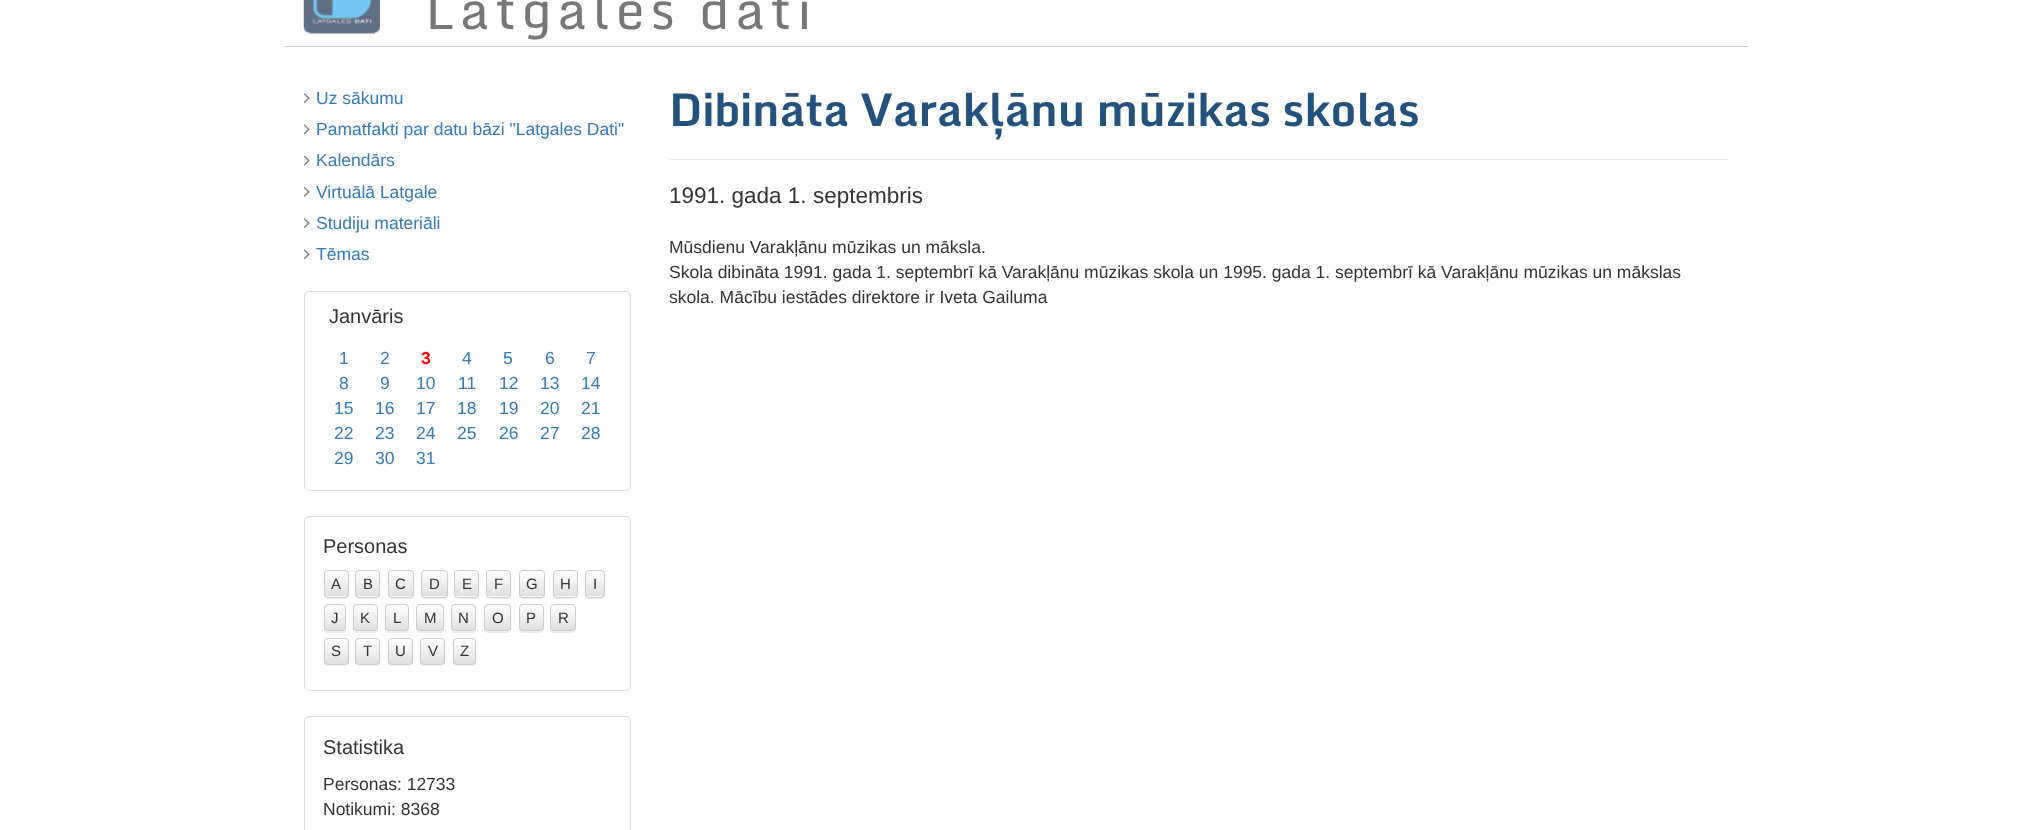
<?xml version="1.0" encoding="UTF-8"?>
<svg xmlns="http://www.w3.org/2000/svg" width="2031" height="830">
    <defs>
        <filter id="blur1" x="-50%" y="-200%" width="200%" height="500%"><feGaussianBlur stdDeviation="0.5"/></filter>
        <clipPath id="clip1"><rect x="324" y="570" width="25" height="28" rx="4"/></clipPath>
        <linearGradient id="g1" gradientUnits="userSpaceOnUse" x1="336" y1="571" x2="336" y2="596"><stop offset="0" stop-color="#FFFFFF"/><stop offset="1" stop-color="#E0E0E0"/></linearGradient>
        <clipPath id="clip2"><rect x="355" y="570" width="25" height="28" rx="4"/></clipPath>
        <linearGradient id="g2" gradientUnits="userSpaceOnUse" x1="368" y1="571" x2="368" y2="596"><stop offset="0" stop-color="#FFFFFF"/><stop offset="1" stop-color="#E0E0E0"/></linearGradient>
        <clipPath id="clip3"><rect x="388" y="570" width="26" height="28" rx="4"/></clipPath>
        <linearGradient id="g3" gradientUnits="userSpaceOnUse" x1="401" y1="571" x2="401" y2="596"><stop offset="0" stop-color="#FFFFFF"/><stop offset="1" stop-color="#E0E0E0"/></linearGradient>
        <clipPath id="clip4"><rect x="421" y="570" width="27" height="28" rx="4"/></clipPath>
        <linearGradient id="g4" gradientUnits="userSpaceOnUse" x1="434" y1="571" x2="434" y2="596"><stop offset="0" stop-color="#FFFFFF"/><stop offset="1" stop-color="#E0E0E0"/></linearGradient>
        <clipPath id="clip5"><rect x="454" y="570" width="25" height="28" rx="4"/></clipPath>
        <linearGradient id="g5" gradientUnits="userSpaceOnUse" x1="466" y1="571" x2="466" y2="596"><stop offset="0" stop-color="#FFFFFF"/><stop offset="1" stop-color="#E0E0E0"/></linearGradient>
        <clipPath id="clip6"><rect x="486" y="570" width="25" height="28" rx="4"/></clipPath>
        <linearGradient id="g6" gradientUnits="userSpaceOnUse" x1="499" y1="571" x2="499" y2="596"><stop offset="0" stop-color="#FFFFFF"/><stop offset="1" stop-color="#E0E0E0"/></linearGradient>
        <clipPath id="clip7"><rect x="519" y="570" width="26" height="28" rx="4"/></clipPath>
        <linearGradient id="g7" gradientUnits="userSpaceOnUse" x1="532" y1="571" x2="532" y2="596"><stop offset="0" stop-color="#FFFFFF"/><stop offset="1" stop-color="#E0E0E0"/></linearGradient>
        <clipPath id="clip8"><rect x="553" y="570" width="25" height="28" rx="4"/></clipPath>
        <linearGradient id="g8" gradientUnits="userSpaceOnUse" x1="565" y1="571" x2="565" y2="596"><stop offset="0" stop-color="#FFFFFF"/><stop offset="1" stop-color="#E0E0E0"/></linearGradient>
        <clipPath id="clip9"><rect x="585" y="570" width="20" height="28" rx="4"/></clipPath>
        <linearGradient id="g9" gradientUnits="userSpaceOnUse" x1="595" y1="571" x2="595" y2="596"><stop offset="0" stop-color="#FFFFFF"/><stop offset="1" stop-color="#E0E0E0"/></linearGradient>
        <clipPath id="clip10"><rect x="324" y="604" width="22" height="27" rx="4"/></clipPath>
        <linearGradient id="g10" gradientUnits="userSpaceOnUse" x1="335" y1="605" x2="335" y2="630"><stop offset="0" stop-color="#FFFFFF"/><stop offset="1" stop-color="#E0E0E0"/></linearGradient>
        <clipPath id="clip11"><rect x="353" y="604" width="25" height="27" rx="4"/></clipPath>
        <linearGradient id="g11" gradientUnits="userSpaceOnUse" x1="365" y1="605" x2="365" y2="630"><stop offset="0" stop-color="#FFFFFF"/><stop offset="1" stop-color="#E0E0E0"/></linearGradient>
        <clipPath id="clip12"><rect x="385" y="604" width="24" height="27" rx="4"/></clipPath>
        <linearGradient id="g12" gradientUnits="userSpaceOnUse" x1="397" y1="605" x2="397" y2="630"><stop offset="0" stop-color="#FFFFFF"/><stop offset="1" stop-color="#E0E0E0"/></linearGradient>
        <clipPath id="clip13"><rect x="416" y="604" width="28" height="27" rx="4"/></clipPath>
        <linearGradient id="g13" gradientUnits="userSpaceOnUse" x1="430" y1="605" x2="430" y2="630"><stop offset="0" stop-color="#FFFFFF"/><stop offset="1" stop-color="#E0E0E0"/></linearGradient>
        <clipPath id="clip14"><rect x="451" y="604" width="25" height="27" rx="4"/></clipPath>
        <linearGradient id="g14" gradientUnits="userSpaceOnUse" x1="464" y1="605" x2="464" y2="630"><stop offset="0" stop-color="#FFFFFF"/><stop offset="1" stop-color="#E0E0E0"/></linearGradient>
        <clipPath id="clip15"><rect x="484" y="604" width="27" height="27" rx="4"/></clipPath>
        <linearGradient id="g15" gradientUnits="userSpaceOnUse" x1="498" y1="605" x2="498" y2="630"><stop offset="0" stop-color="#FFFFFF"/><stop offset="1" stop-color="#E0E0E0"/></linearGradient>
        <clipPath id="clip16"><rect x="519" y="604" width="25" height="27" rx="4"/></clipPath>
        <linearGradient id="g16" gradientUnits="userSpaceOnUse" x1="531" y1="605" x2="531" y2="630"><stop offset="0" stop-color="#FFFFFF"/><stop offset="1" stop-color="#E0E0E0"/></linearGradient>
        <clipPath id="clip17"><rect x="550" y="604" width="26" height="27" rx="4"/></clipPath>
        <linearGradient id="g17" gradientUnits="userSpaceOnUse" x1="563" y1="605" x2="563" y2="630"><stop offset="0" stop-color="#FFFFFF"/><stop offset="1" stop-color="#E0E0E0"/></linearGradient>
        <clipPath id="clip18"><rect x="324" y="638" width="25" height="27" rx="4"/></clipPath>
        <linearGradient id="g18" gradientUnits="userSpaceOnUse" x1="336" y1="639" x2="336" y2="664"><stop offset="0" stop-color="#FFFFFF"/><stop offset="1" stop-color="#E0E0E0"/></linearGradient>
        <clipPath id="clip19"><rect x="355" y="638" width="25" height="27" rx="4"/></clipPath>
        <linearGradient id="g19" gradientUnits="userSpaceOnUse" x1="368" y1="639" x2="368" y2="664"><stop offset="0" stop-color="#FFFFFF"/><stop offset="1" stop-color="#E0E0E0"/></linearGradient>
        <clipPath id="clip20"><rect x="388" y="638" width="25" height="27" rx="4"/></clipPath>
        <linearGradient id="g20" gradientUnits="userSpaceOnUse" x1="400" y1="639" x2="400" y2="664"><stop offset="0" stop-color="#FFFFFF"/><stop offset="1" stop-color="#E0E0E0"/></linearGradient>
        <clipPath id="clip21"><rect x="420" y="638" width="25" height="27" rx="4"/></clipPath>
        <linearGradient id="g21" gradientUnits="userSpaceOnUse" x1="433" y1="639" x2="433" y2="664"><stop offset="0" stop-color="#FFFFFF"/><stop offset="1" stop-color="#E0E0E0"/></linearGradient>
        <clipPath id="clip22"><rect x="453" y="638" width="23" height="27" rx="4"/></clipPath>
        <linearGradient id="g22" gradientUnits="userSpaceOnUse" x1="464" y1="639" x2="464" y2="664"><stop offset="0" stop-color="#FFFFFF"/><stop offset="1" stop-color="#E0E0E0"/></linearGradient>
    </defs>
    <rect width="100%" height="100%" fill="#FFFFFF"/>
    <rect x="285" y="46" width="1463" height="1" fill="#CCCCCC"/>
    <image x="303" y="0" width="77" height="34" href="img_01.png"/>
    <text x="425" y="29" font-family="Monda" font-size="52.5" letter-spacing="5.25" fill="#777777">Latgales dati</text>
    <image x="303" y="93" width="7" height="10" href="img_02.png"/>
    <text x="316" y="104" font-family="Liberation Sans" font-size="17.5" fill="#337AB7">Uz sākumu</text>
    <image x="303" y="124" width="7" height="11" href="img_03.png"/>
    <text x="316" y="135" font-family="Liberation Sans" font-size="17.5" fill="#337AB7">Pamatfakti par datu bāzi "Latgales Dati"</text>
    <image x="303" y="155" width="7" height="11" href="img_04.png"/>
    <text x="316" y="166" font-family="Liberation Sans" font-size="17.5" fill="#337AB7">Kalendārs</text>
    <image x="303" y="187" width="7" height="10" href="img_05.png"/>
    <text x="316" y="198" font-family="Liberation Sans" font-size="17.5" fill="#337AB7">Virtuālā Latgale</text>
    <image x="303" y="218" width="7" height="10" href="img_02.png"/>
    <text x="316" y="229" font-family="Liberation Sans" font-size="17.5" fill="#337AB7">Studiju materiāli</text>
    <image x="303" y="249" width="7" height="11" href="img_03.png"/>
    <text x="316" y="260" font-family="Liberation Sans" font-size="17.5" fill="#337AB7">Tēmas</text>
    <rect x="304.5" y="291.5" width="326" height="199" rx="4.5" fill="none" stroke="#DDDDDD"/>
    <text x="329" y="323" font-family="Liberation Sans" font-size="20" fill="#333333">Janvāris</text>
    <text x="339" y="364" font-family="Liberation Sans" font-size="17.5" fill="#337AB7">1</text>
    <text x="380" y="364" font-family="Liberation Sans" font-size="17.5" fill="#337AB7">2</text>
    <text x="421" y="364" font-family="Liberation Sans" font-size="17.5" font-weight="700" fill="#FF0000">3</text>
    <text x="462" y="364" font-family="Liberation Sans" font-size="17.5" fill="#337AB7">4</text>
    <text x="503" y="364" font-family="Liberation Sans" font-size="17.5" fill="#337AB7">5</text>
    <text x="545" y="364" font-family="Liberation Sans" font-size="17.5" fill="#337AB7">6</text>
    <text x="586" y="364" font-family="Liberation Sans" font-size="17.5" fill="#337AB7">7</text>
    <text x="339" y="389" font-family="Liberation Sans" font-size="17.5" fill="#337AB7">8</text>
    <text x="380" y="389" font-family="Liberation Sans" font-size="17.5" fill="#337AB7">9</text>
    <text x="416" y="389" font-family="Liberation Sans" font-size="17.5" fill="#337AB7">10</text>
    <text x="458" y="389" font-family="Liberation Sans" font-size="17.5" fill="#337AB7">11</text>
    <text x="499" y="389" font-family="Liberation Sans" font-size="17.5" fill="#337AB7">12</text>
    <text x="540" y="389" font-family="Liberation Sans" font-size="17.5" fill="#337AB7">13</text>
    <text x="581" y="389" font-family="Liberation Sans" font-size="17.5" fill="#337AB7">14</text>
    <text x="334" y="414" font-family="Liberation Sans" font-size="17.5" fill="#337AB7">15</text>
    <text x="375" y="414" font-family="Liberation Sans" font-size="17.5" fill="#337AB7">16</text>
    <text x="416" y="414" font-family="Liberation Sans" font-size="17.5" fill="#337AB7">17</text>
    <text x="457" y="414" font-family="Liberation Sans" font-size="17.5" fill="#337AB7">18</text>
    <text x="499" y="414" font-family="Liberation Sans" font-size="17.5" fill="#337AB7">19</text>
    <text x="540" y="414" font-family="Liberation Sans" font-size="17.5" fill="#337AB7">20</text>
    <text x="581" y="414" font-family="Liberation Sans" font-size="17.5" fill="#337AB7">21</text>
    <text x="334" y="439" font-family="Liberation Sans" font-size="17.5" fill="#337AB7">22</text>
    <text x="375" y="439" font-family="Liberation Sans" font-size="17.5" fill="#337AB7">23</text>
    <text x="416" y="439" font-family="Liberation Sans" font-size="17.5" fill="#337AB7">24</text>
    <text x="457" y="439" font-family="Liberation Sans" font-size="17.5" fill="#337AB7">25</text>
    <text x="499" y="439" font-family="Liberation Sans" font-size="17.5" fill="#337AB7">26</text>
    <text x="540" y="439" font-family="Liberation Sans" font-size="17.5" fill="#337AB7">27</text>
    <text x="581" y="439" font-family="Liberation Sans" font-size="17.5" fill="#337AB7">28</text>
    <text x="334" y="464" font-family="Liberation Sans" font-size="17.5" fill="#337AB7">29</text>
    <text x="375" y="464" font-family="Liberation Sans" font-size="17.5" fill="#337AB7">30</text>
    <text x="416" y="464" font-family="Liberation Sans" font-size="17.5" fill="#337AB7">31</text>
    <rect x="304.5" y="516.5" width="326" height="174" rx="4.5" fill="none" stroke="#DDDDDD"/>
    <text x="323" y="553" font-family="Liberation Sans" font-size="20" fill="#333333">Personas</text>
    <rect x="324" y="571" width="25" height="28" rx="4" fill="#000000" fill-opacity="0.07" filter="url(#blur1)"/>
    <rect x="324" y="570" width="25" height="28" rx="4" fill="#FFFFFF"/>
    <g clip-path="url(#clip1)">
        <rect x="324" y="571" width="25" height="25" fill="url(#g1)"/>
    </g>
    <rect x="324.5" y="570.5" width="24" height="27" rx="3.5" fill="none" stroke="#CCCCCC"/>
    <text x="331" y="589" font-family="Liberation Sans" font-size="15" fill="#333333">A</text>
    <rect x="355" y="571" width="25" height="28" rx="4" fill="#000000" fill-opacity="0.07" filter="url(#blur1)"/>
    <rect x="355" y="570" width="25" height="28" rx="4" fill="#FFFFFF"/>
    <g clip-path="url(#clip2)">
        <rect x="355" y="571" width="25" height="25" fill="url(#g2)"/>
    </g>
    <rect x="355.5" y="570.5" width="24" height="27" rx="3.5" fill="none" stroke="#CCCCCC"/>
    <text x="363" y="589" font-family="Liberation Sans" font-size="15" fill="#333333">B</text>
    <rect x="388" y="571" width="26" height="28" rx="4" fill="#000000" fill-opacity="0.07" filter="url(#blur1)"/>
    <rect x="388" y="570" width="26" height="28" rx="4" fill="#FFFFFF"/>
    <g clip-path="url(#clip3)">
        <rect x="388" y="571" width="26" height="25" fill="url(#g3)"/>
    </g>
    <path d="M 391 572 H 410.5 C 413 573.5 412 580 412 581.5 V 595.5 C 412.5 595 413 594.5 413 593.5 V 573.5 C 413 572 412 571 410.5 571 H 391.5 C 390 571 389 572 389 573.5 V 575 C 389 574 390 572 391 572 Z" fill="#FFFFFF" fill-opacity="0.15"/>
    <rect x="388.5" y="570.5" width="25" height="27" rx="3.5" fill="none" stroke="#CCCCCC"/>
    <text x="395" y="589" font-family="Liberation Sans" font-size="15" fill="#333333">C</text>
    <rect x="421" y="571" width="27" height="28" rx="4" fill="#000000" fill-opacity="0.07" filter="url(#blur1)"/>
    <rect x="421" y="570" width="27" height="28" rx="4" fill="#FFFFFF"/>
    <g clip-path="url(#clip4)">
        <rect x="421" y="571" width="27" height="25" fill="url(#g4)"/>
    </g>
    <rect x="421.5" y="570.5" width="26" height="27" rx="3.5" fill="none" stroke="#CCCCCC"/>
    <text x="429" y="589" font-family="Liberation Sans" font-size="15" fill="#333333">D</text>
    <rect x="454" y="571" width="25" height="28" rx="4" fill="#000000" fill-opacity="0.07" filter="url(#blur1)"/>
    <rect x="454" y="570" width="25" height="28" rx="4" fill="#FFFFFF"/>
    <g clip-path="url(#clip5)">
        <rect x="454" y="571" width="25" height="25" fill="url(#g5)"/>
    </g>
    <rect x="454.5" y="570.5" width="24" height="27" rx="3.5" fill="none" stroke="#CCCCCC"/>
    <text x="462" y="589" font-family="Liberation Sans" font-size="15" fill="#333333">E</text>
    <rect x="486" y="571" width="25" height="28" rx="4" fill="#000000" fill-opacity="0.07" filter="url(#blur1)"/>
    <rect x="486" y="570" width="25" height="28" rx="4" fill="#FFFFFF"/>
    <g clip-path="url(#clip6)">
        <rect x="486" y="571" width="25" height="25" fill="url(#g6)"/>
    </g>
    <rect x="486.5" y="570.5" width="24" height="27" rx="3.5" fill="none" stroke="#CCCCCC"/>
    <text x="494" y="589" font-family="Liberation Sans" font-size="15" fill="#333333">F</text>
    <rect x="519" y="571" width="26" height="28" rx="4" fill="#000000" fill-opacity="0.07" filter="url(#blur1)"/>
    <rect x="519" y="570" width="26" height="28" rx="4" fill="#FFFFFF"/>
    <g clip-path="url(#clip7)">
        <rect x="519" y="571" width="26" height="25" fill="url(#g7)"/>
    </g>
    <rect x="519.5" y="570.5" width="25" height="27" rx="3.5" fill="none" stroke="#CCCCCC"/>
    <text x="526" y="589" font-family="Liberation Sans" font-size="15" fill="#333333">G</text>
    <rect x="553" y="571" width="25" height="28" rx="4" fill="#000000" fill-opacity="0.07" filter="url(#blur1)"/>
    <rect x="553" y="570" width="25" height="28" rx="4" fill="#FFFFFF"/>
    <g clip-path="url(#clip8)">
        <rect x="553" y="571" width="25" height="25" fill="url(#g8)"/>
    </g>
    <rect x="553.5" y="570.5" width="24" height="27" rx="3.5" fill="none" stroke="#CCCCCC"/>
    <text x="560" y="589" font-family="Liberation Sans" font-size="15" fill="#333333">H</text>
    <rect x="585" y="571" width="20" height="28" rx="4" fill="#000000" fill-opacity="0.07" filter="url(#blur1)"/>
    <rect x="585" y="570" width="20" height="28" rx="4" fill="#FFFFFF"/>
    <g clip-path="url(#clip9)">
        <rect x="585" y="571" width="20" height="25" fill="url(#g9)"/>
    </g>
    <rect x="585.5" y="570.5" width="19" height="27" rx="3.5" fill="none" stroke="#CCCCCC"/>
    <text x="593" y="589" font-family="Liberation Sans" font-size="15" fill="#333333">I</text>
    <rect x="324" y="605" width="22" height="28" rx="4" fill="#000000" fill-opacity="0.07" filter="url(#blur1)"/>
    <g clip-path="url(#clip10)">
        <rect x="324" y="605" width="22" height="25" fill="url(#g10)"/>
    </g>
    <rect x="324.5" y="604.5" width="21" height="26" rx="3.5" fill="none" stroke="#CCCCCC"/>
    <text x="331" y="623" font-family="Liberation Sans" font-size="15" fill="#333333">J</text>
    <rect x="353" y="605" width="25" height="28" rx="4" fill="#000000" fill-opacity="0.07" filter="url(#blur1)"/>
    <g clip-path="url(#clip11)">
        <rect x="353" y="605" width="25" height="25" fill="url(#g11)"/>
    </g>
    <rect x="353.5" y="604.5" width="24" height="26" rx="3.5" fill="none" stroke="#CCCCCC"/>
    <text x="360" y="623" font-family="Liberation Sans" font-size="15" fill="#333333">K</text>
    <rect x="385" y="605" width="24" height="28" rx="4" fill="#000000" fill-opacity="0.07" filter="url(#blur1)"/>
    <g clip-path="url(#clip12)">
        <rect x="385" y="605" width="24" height="25" fill="url(#g12)"/>
    </g>
    <rect x="385.5" y="604.5" width="23" height="26" rx="3.5" fill="none" stroke="#CCCCCC"/>
    <text x="393" y="623" font-family="Liberation Sans" font-size="15" fill="#333333">L</text>
    <rect x="416" y="605" width="28" height="28" rx="4" fill="#000000" fill-opacity="0.07" filter="url(#blur1)"/>
    <g clip-path="url(#clip13)">
        <rect x="416" y="605" width="28" height="25" fill="url(#g13)"/>
    </g>
    <path d="M 420 606 H 440.5 C 443 606.5 442 614 442 615.5 V 629.5 C 442.5 629 443 628.5 443 627.5 V 607.5 C 443 606 442 605 440.5 605 H 420.5 C 419 605 418 606 418 607.5 V 609 C 418 607 419 606 420 606 Z" fill="#FFFFFF" fill-opacity="0.15"/>
    <rect x="416.5" y="604.5" width="27" height="26" rx="3.5" fill="none" stroke="#CCCCCC"/>
    <text x="424" y="623" font-family="Liberation Sans" font-size="15" fill="#333333">M</text>
    <rect x="451" y="605" width="25" height="28" rx="4" fill="#000000" fill-opacity="0.07" filter="url(#blur1)"/>
    <g clip-path="url(#clip14)">
        <rect x="451" y="605" width="25" height="25" fill="url(#g14)"/>
    </g>
    <rect x="451.5" y="604.5" width="24" height="26" rx="3.5" fill="none" stroke="#CCCCCC"/>
    <text x="458" y="623" font-family="Liberation Sans" font-size="15" fill="#333333">N</text>
    <rect x="484" y="605" width="27" height="28" rx="4" fill="#000000" fill-opacity="0.07" filter="url(#blur1)"/>
    <g clip-path="url(#clip15)">
        <rect x="484" y="605" width="27" height="25" fill="url(#g15)"/>
    </g>
    <rect x="484.5" y="604.5" width="26" height="26" rx="3.5" fill="none" stroke="#CCCCCC"/>
    <text x="492" y="623" font-family="Liberation Sans" font-size="15" fill="#333333">O</text>
    <rect x="519" y="605" width="25" height="28" rx="4" fill="#000000" fill-opacity="0.07" filter="url(#blur1)"/>
    <g clip-path="url(#clip16)">
        <rect x="519" y="605" width="25" height="25" fill="url(#g16)"/>
    </g>
    <path d="M 522 606 H 540.5 C 543 606.5 542 614 542 615.5 V 629.5 C 542.5 629 543 628.5 543 627.5 V 607.5 C 543 606 542 605 540.5 605 H 522.5 C 521 605 520 606 520 607.5 V 609 C 520 607 521 606 522 606 Z" fill="#FFFFFF" fill-opacity="0.15"/>
    <rect x="519.5" y="604.5" width="24" height="26" rx="3.5" fill="none" stroke="#CCCCCC"/>
    <text x="526" y="623" font-family="Liberation Sans" font-size="15" fill="#333333">P</text>
    <rect x="550" y="605" width="26" height="28" rx="4" fill="#000000" fill-opacity="0.07" filter="url(#blur1)"/>
    <g clip-path="url(#clip17)">
        <rect x="550" y="605" width="26" height="25" fill="url(#g17)"/>
    </g>
    <rect x="550.5" y="604.5" width="25" height="26" rx="3.5" fill="none" stroke="#CCCCCC"/>
    <text x="558" y="623" font-family="Liberation Sans" font-size="15" fill="#333333">R</text>
    <rect x="324" y="639" width="25" height="27" rx="4" fill="#000000" fill-opacity="0.07" filter="url(#blur1)"/>
    <g clip-path="url(#clip18)">
        <rect x="324" y="639" width="25" height="25" fill="url(#g18)"/>
    </g>
    <rect x="324.5" y="638.5" width="24" height="26" rx="3.5" fill="none" stroke="#CCCCCC"/>
    <text x="331" y="656" font-family="Liberation Sans" font-size="15" fill="#333333">S</text>
    <rect x="355" y="639" width="25" height="27" rx="4" fill="#000000" fill-opacity="0.07" filter="url(#blur1)"/>
    <g clip-path="url(#clip19)">
        <rect x="355" y="639" width="25" height="25" fill="url(#g19)"/>
    </g>
    <rect x="355.5" y="638.5" width="24" height="26" rx="3.5" fill="none" stroke="#CCCCCC"/>
    <text x="363" y="656" font-family="Liberation Sans" font-size="15" fill="#333333">T</text>
    <rect x="388" y="639" width="25" height="27" rx="4" fill="#000000" fill-opacity="0.07" filter="url(#blur1)"/>
    <g clip-path="url(#clip20)">
        <rect x="388" y="639" width="25" height="25" fill="url(#g20)"/>
    </g>
    <rect x="388.5" y="638.5" width="24" height="26" rx="3.5" fill="none" stroke="#CCCCCC"/>
    <text x="395" y="656" font-family="Liberation Sans" font-size="15" fill="#333333">U</text>
    <rect x="420" y="639" width="25" height="27" rx="4" fill="#000000" fill-opacity="0.07" filter="url(#blur1)"/>
    <g clip-path="url(#clip21)">
        <rect x="420" y="639" width="25" height="25" fill="url(#g21)"/>
    </g>
    <rect x="420.5" y="638.5" width="24" height="26" rx="3.5" fill="none" stroke="#CCCCCC"/>
    <text x="428" y="656" font-family="Liberation Sans" font-size="15" fill="#333333">V</text>
    <rect x="453" y="639" width="23" height="27" rx="4" fill="#000000" fill-opacity="0.07" filter="url(#blur1)"/>
    <g clip-path="url(#clip22)">
        <rect x="453" y="639" width="23" height="25" fill="url(#g22)"/>
    </g>
    <rect x="453.5" y="638.5" width="22" height="26" rx="3.5" fill="none" stroke="#CCCCCC"/>
    <text x="460" y="656" font-family="Liberation Sans" font-size="15" fill="#333333">Z</text>
    <rect x="304.5" y="716.5" width="326" height="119" rx="4.5" fill="none" stroke="#DDDDDD"/>
    <text x="323" y="754" font-family="Liberation Sans" font-size="20" fill="#333333">Statistika</text>
    <text font-family="Liberation Sans" font-size="17.5" fill="#333333">
        <tspan x="323" y="790">Personas: 12733</tspan>
        <tspan x="323" y="815">Notikumi: 8368</tspan>
    </text>
    <rect x="669" y="159" width="1060" height="1" fill="#EEEEEE"/>
    <text x="669" y="126" font-family="Monda" font-size="45" font-weight="700" fill="#23527C">Dibināta Varakļānu mūzikas skolas</text>
    <text x="669" y="203" font-family="Liberation Sans" font-size="22.5" fill="#333333">1991. gada 1. septembris</text>
    <text font-family="Liberation Sans" font-size="17.5" fill="#333333">
        <tspan x="669" y="253">Mūsdienu Varakļānu mūzikas un māksla.</tspan>
        <tspan x="669" y="278">Skola dibināta 1991. gada 1. septembrī kā Varakļānu mūzikas skola un 1995. gada 1. septembrī kā Varakļānu mūzikas un mākslas</tspan>
        <tspan x="669" y="303">skola. Mācību iestādes direktore ir Iveta Gailuma</tspan>
    </text>
</svg>
